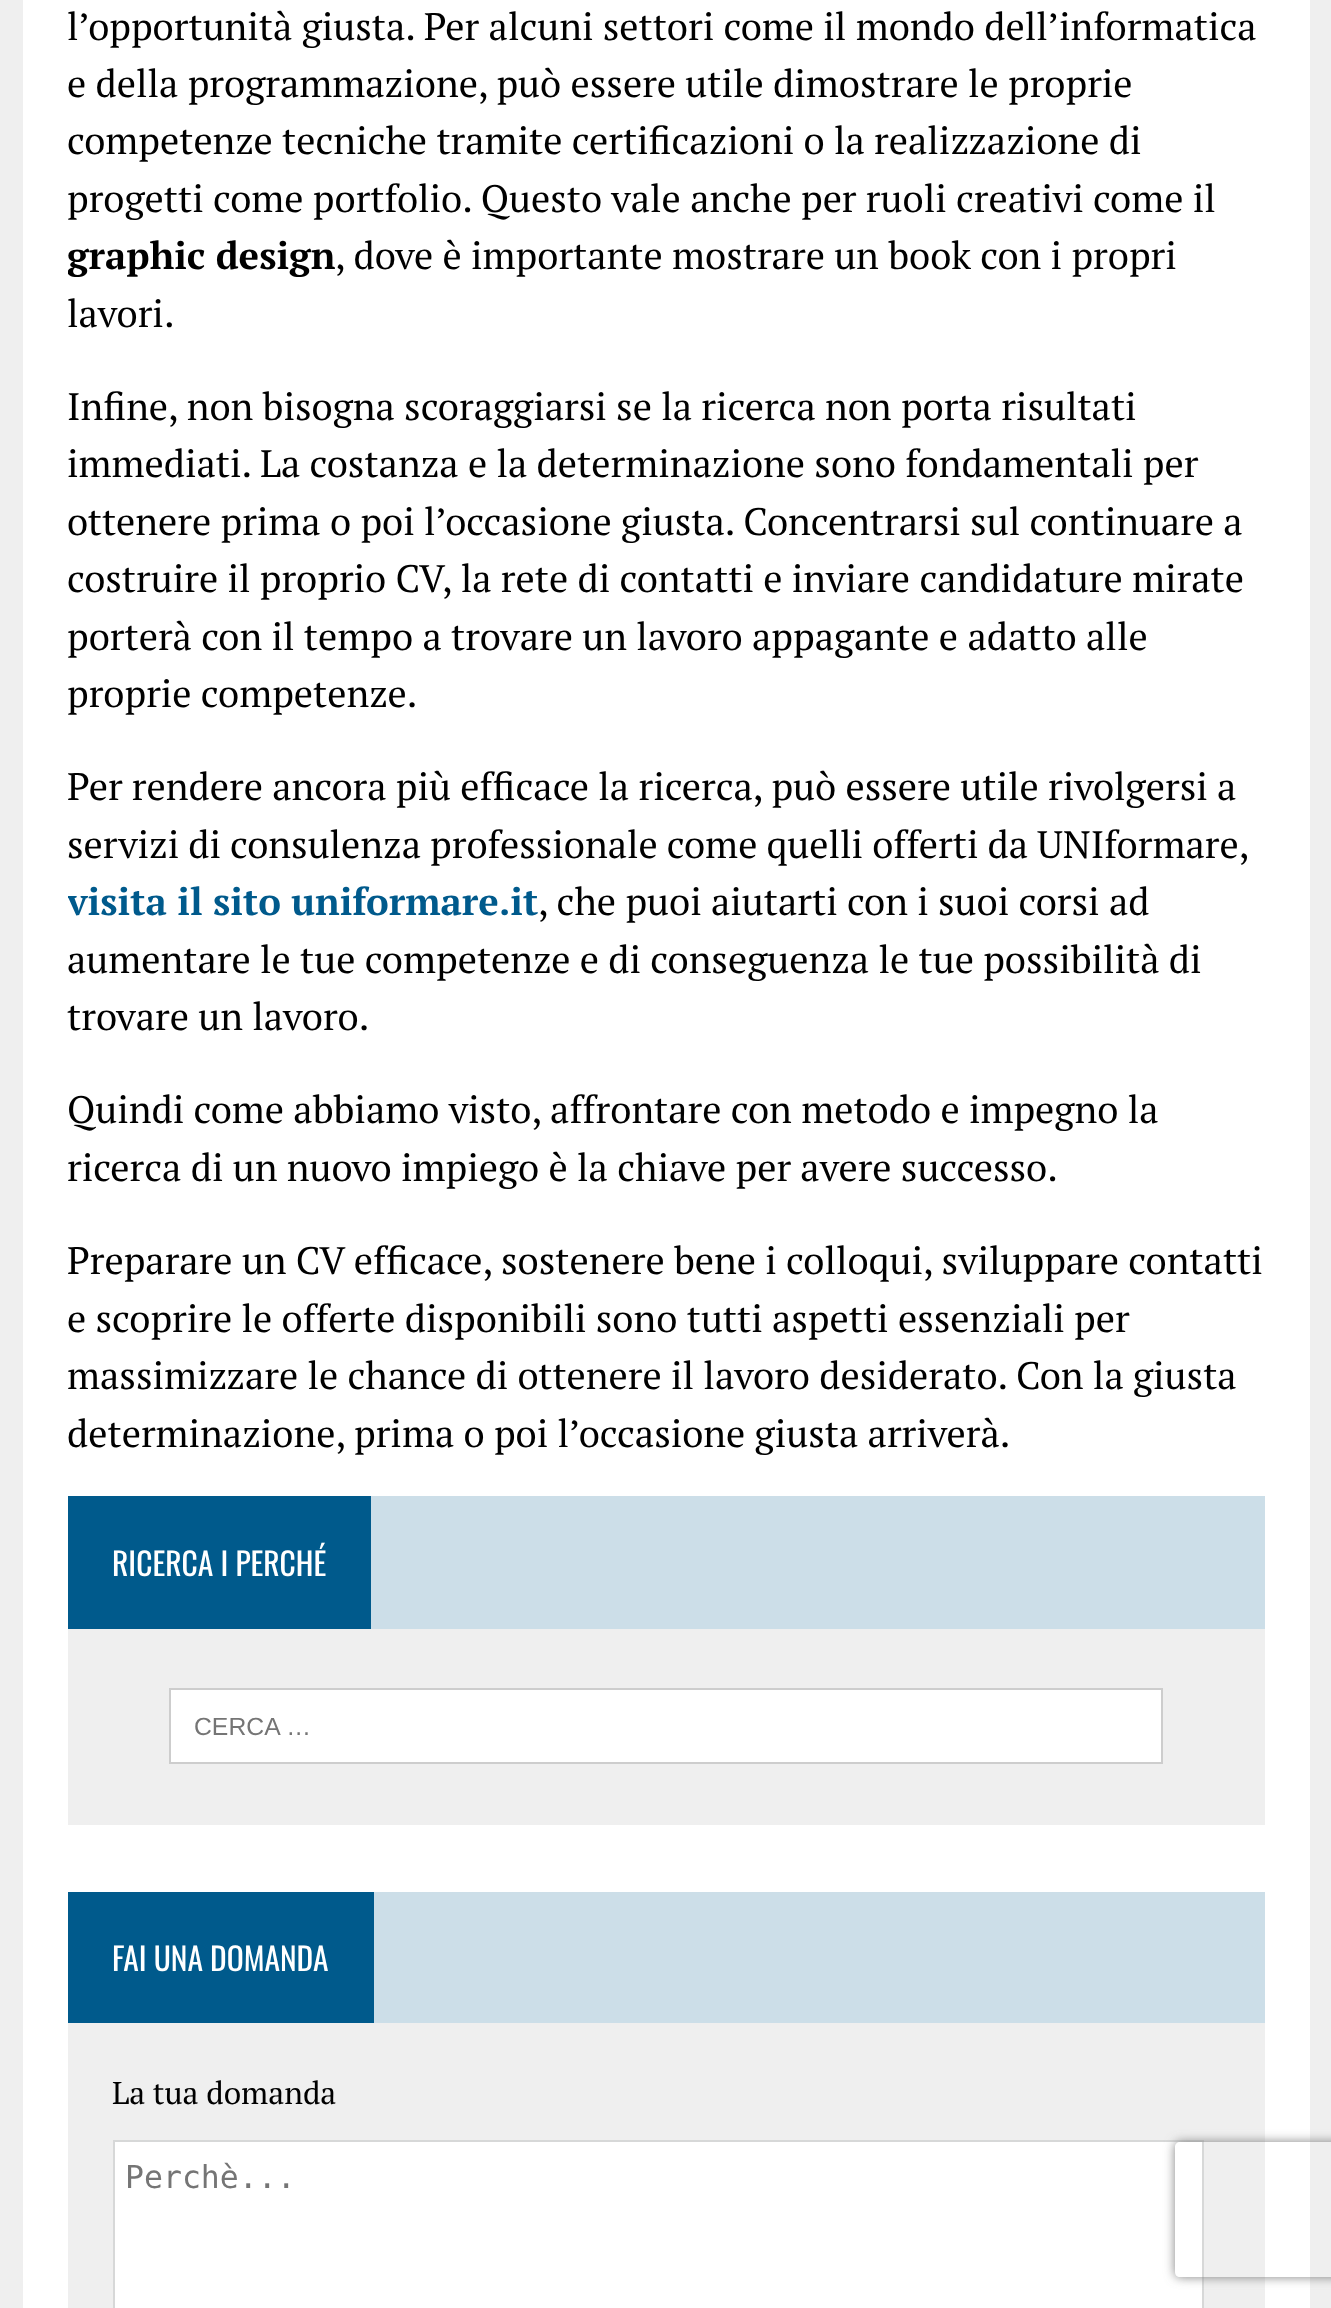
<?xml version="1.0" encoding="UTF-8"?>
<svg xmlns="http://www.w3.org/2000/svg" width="1331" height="2308">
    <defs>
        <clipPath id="clip1"><rect x="68" y="0" width="1197" height="1496"/></clipPath>
        <clipPath id="clip2"><path d="M 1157 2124 H 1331 V 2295 H 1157 Z M 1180 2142 H 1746 C 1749 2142 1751 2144 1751 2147 V 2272 C 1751 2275 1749 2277 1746 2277 H 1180 C 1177 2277 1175 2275 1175 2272 V 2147 C 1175 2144 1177 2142 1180 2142 Z" clip-rule="evenodd"/></clipPath>
        <filter id="blur1" x="-50%" y="-200%" width="200%" height="500%"><feGaussianBlur stdDeviation="5.5"/></filter>
    </defs>
    <rect width="100%" height="100%" fill="#EFEFEF"/>
    <rect x="23" y="0" width="1287" height="2308" fill="#FFFFFF"/>
    <text font-family="PT Serif" font-size="38.25" fill="#000000">
        <tspan x="67" y="40">l’opportunità giusta. Per alcuni settori come il mondo dell’informatica</tspan>
        <tspan x="67" y="97">e della programmazione, può essere utile dimostrare le proprie</tspan>
        <tspan x="67" y="154">competenze tecniche tramite certificazioni o la realizzazione di</tspan>
    </text>
    <g clip-path="url(#clip1)">
        <text x="67" y="212" font-family="PT Serif" font-size="38.25" fill="#000000">progetti come portfolio. Questo vale anche per ruoli creativi come il</text>
        <text x="67" y="269" font-family="PT Serif" font-size="38.25" font-weight="700" fill="#000000">graphic design</text>
    </g>
    <text x="335" y="269" font-family="PT Serif" font-size="38.25" fill="#000000">, dove è importante mostrare un book con i propri</text>
    <text x="67" y="327" font-family="PT Serif" font-size="38.25" fill="#000000">lavori.</text>
    <text font-family="PT Serif" font-size="38.25" fill="#000000">
        <tspan x="67" y="420">Infine, non bisogna scoraggiarsi se la ricerca non porta risultati</tspan>
        <tspan x="67" y="477">immediati. La costanza e la determinazione sono fondamentali per</tspan>
        <tspan x="67" y="535">ottenere prima o poi l’occasione giusta. Concentrarsi sul continuare a</tspan>
        <tspan x="67" y="592">costruire il proprio CV, la rete di contatti e inviare candidature mirate</tspan>
    </text>
    <g clip-path="url(#clip1)">
        <text font-family="PT Serif" font-size="38.25" fill="#000000">
            <tspan x="67" y="650">porterà con il tempo a trovare un lavoro appagante e adatto alle</tspan>
            <tspan x="67" y="707">proprie competenze.</tspan>
        </text>
        <text x="67" y="800" font-family="PT Serif" font-size="38.25" fill="#000000">Per rendere ancora più efficace la ricerca, può essere utile rivolgersi a</text>
    </g>
    <text x="67" y="858" word-spacing="-0.25" font-family="PT Serif" font-size="38.25" fill="#000000">servizi di consulenza professionale come quelli offerti da UNIformare,</text>
    <g clip-path="url(#clip1)">
        <text x="67" y="915" font-family="PT Serif" font-size="38.25" font-weight="700" fill="#005A8C">visita il sito uniformare.it</text>
    </g>
    <text x="538" y="915" font-family="PT Serif" font-size="38.25" fill="#000000">, che puoi aiutarti con i suoi corsi ad</text>
    <text font-family="PT Serif" font-size="38.25" fill="#000000">
        <tspan x="67" y="973">aumentare le tue competenze e di conseguenza le tue possibilità di</tspan>
        <tspan x="67" y="1030">trovare un lavoro.</tspan>
    </text>
    <text font-family="PT Serif" font-size="38.25" fill="#000000">
        <tspan x="67" y="1123">Quindi come abbiamo visto, affrontare con metodo e impegno la</tspan>
        <tspan x="67" y="1181">ricerca di un nuovo impiego è la chiave per avere successo.</tspan>
    </text>
    <g clip-path="url(#clip1)">
        <text x="67" y="1274" font-family="PT Serif" font-size="38.25" fill="#000000">Preparare un CV efficace, sostenere bene i colloqui, sviluppare contatti</text>
    </g>
    <text font-family="PT Serif" font-size="38.25" fill="#000000">
        <tspan x="67" y="1332">e scoprire le offerte disponibili sono tutti aspetti essenziali per</tspan>
        <tspan x="67" y="1389">massimizzare le chance di ottenere il lavoro desiderato. Con la giusta</tspan>
        <tspan x="67" y="1447">determinazione, prima o poi l’occasione giusta arriverà.</tspan>
    </text>
    <rect x="371" y="1496" width="894" height="133" fill="#CCDEE8"/>
    <rect x="68" y="1496" width="303" height="133" fill="#005A8C"/>
    <text x="112" y="1576" font-family="Oswald" font-size="31.5" fill="#FFFFFF">RICERCA I PERCHÉ</text>
    <rect x="68" y="1629" width="1197" height="196" fill="#EFEFEF"/>
    <rect x="170" y="1689" width="992" height="74" fill="#FFFFFF" stroke="#CDCDCD" stroke-width="2"/>
    <text x="194" y="1735" font-family="Liberation Sans" font-size="24.75" fill="#757575">CERCA …</text>
    <rect x="374" y="1892" width="891" height="131" fill="#CCDEE8"/>
    <rect x="68" y="1892" width="306" height="131" fill="#005A8C"/>
    <text x="112" y="1971" font-family="Oswald" font-size="31.5" fill="#FFFFFF">FAI UNA DOMANDA</text>
    <rect x="68" y="2023" width="1197" height="285" fill="#EFEFEF"/>
    <text x="112" y="2104" font-family="PT Serif" font-size="31.5" fill="#000000">La tua domanda</text>
    <rect x="114" y="2141" width="1089" height="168" fill="#FFFFFF" stroke="#D7D8D8" stroke-width="2"/>
    <text x="125" y="2188" font-family="DejaVu Sans Mono" font-size="31.5" fill="#757575">Perchè...</text>
    <g clip-path="url(#clip2)">
        <rect x="1175" y="2142" width="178" height="135" rx="5" fill="#808080" filter="url(#blur1)"/>
    </g>
</svg>
